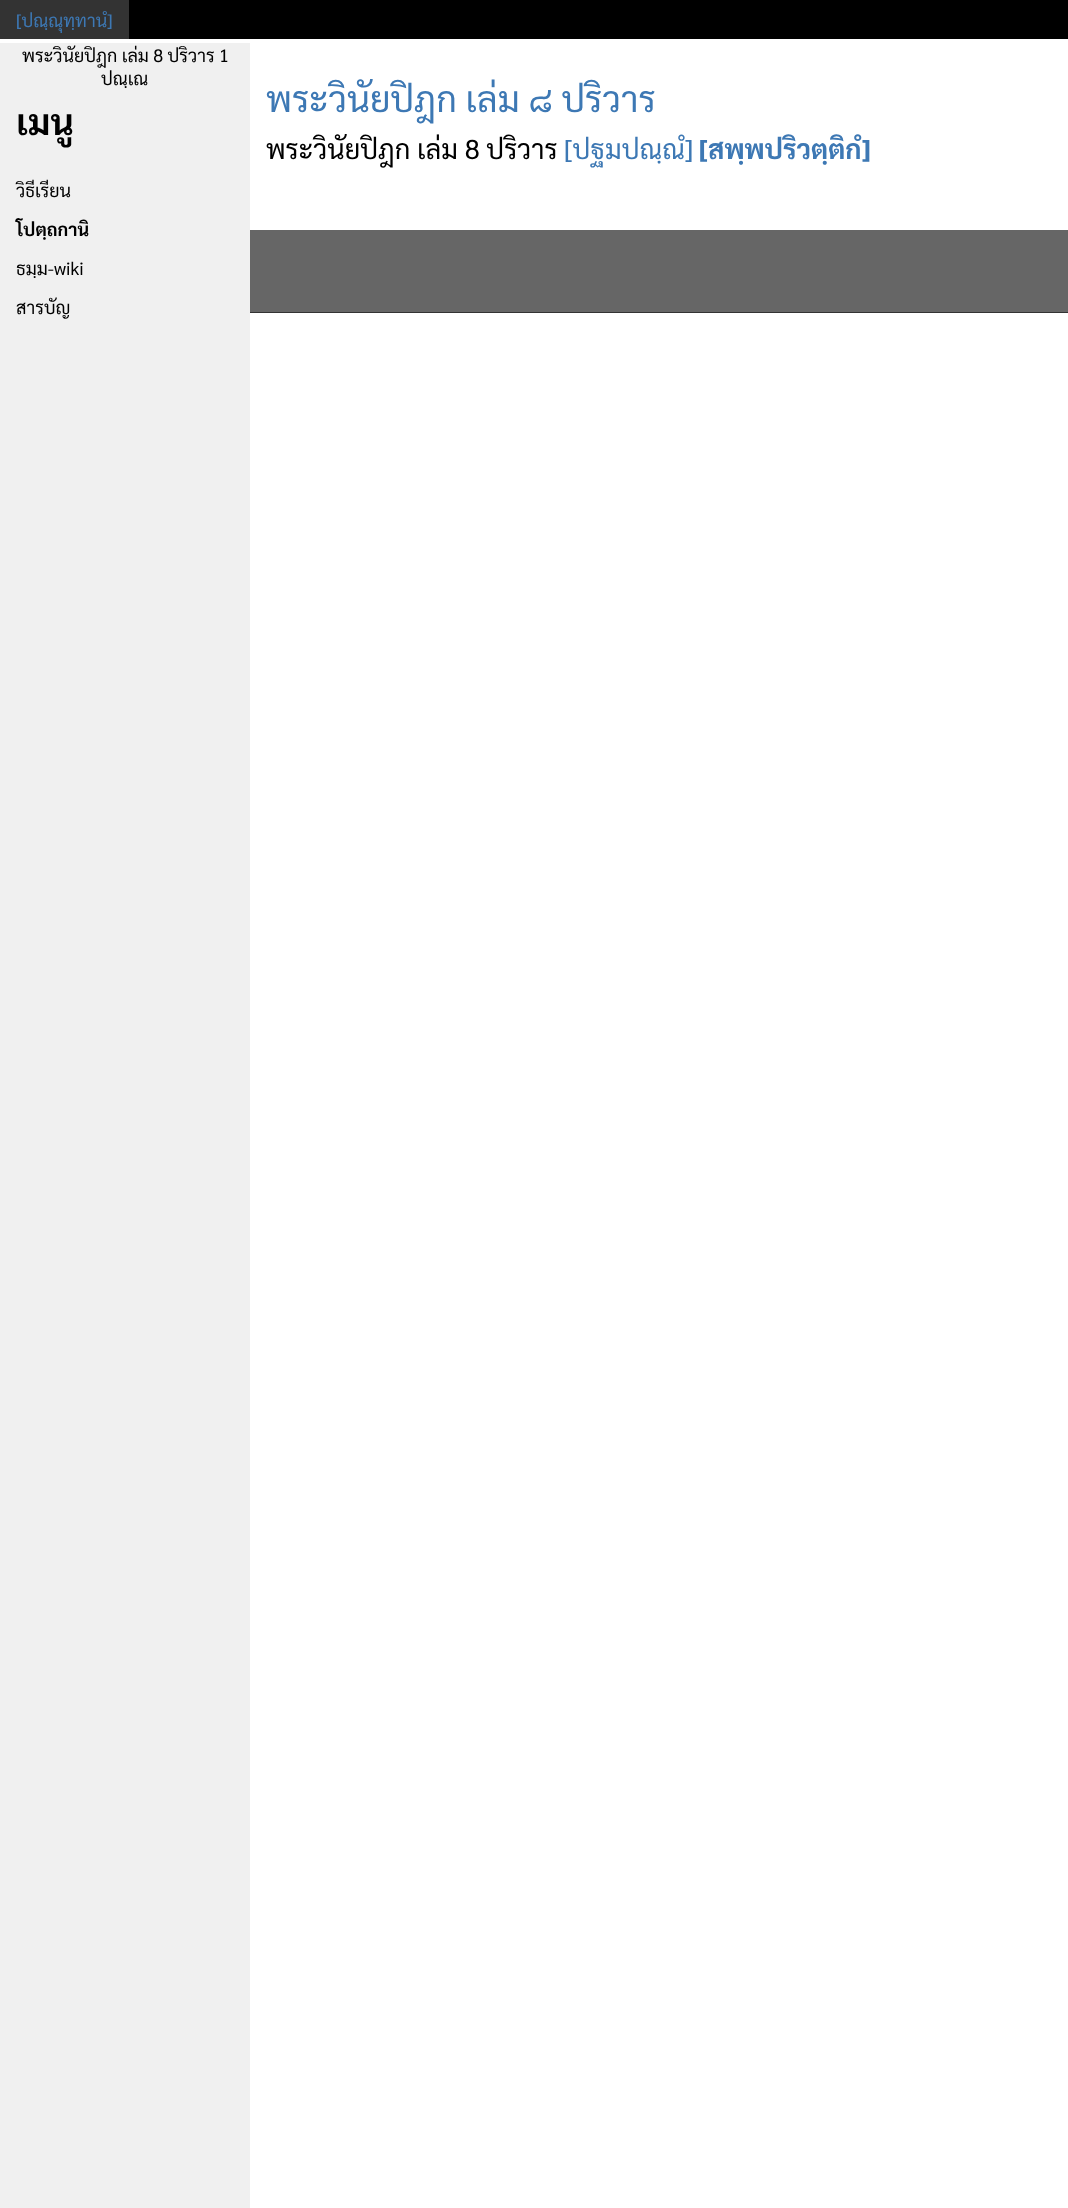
<?xml version="1.0" encoding="UTF-8"?>
<svg xmlns="http://www.w3.org/2000/svg" width="1068" height="2208">
    <rect width="100%" height="100%" fill="#FFFFFF"/>
    <rect x="129" y="0" width="939" height="39" fill="#000000"/>
    <rect x="0" y="0" width="129" height="39" fill="#333333"/>
    <text x="16" y="27" font-family="Sarabun" font-size="18" fill="#3D78B4">[ปณฺณุทฺทานํ]</text>
    <rect x="0" y="43" width="250" height="2165" fill="#F0F0F0"/>
    <text x="22" y="62" font-family="Sarabun" font-size="18" fill="#000000">พระวินัยปิฎก เล่ม 8 ปริวาร 1</text>
    <text x="101" y="85" font-family="Sarabun" font-size="18" fill="#000000">ปณฺเณ</text>
    <text x="16" y="135" font-family="Sarabun" font-size="36" font-weight="700" fill="#000000">เมนู</text>
    <text x="16" y="197" font-family="Sarabun" font-size="18" fill="#000000">วิธีเรียน</text>
    <text x="16" y="236" font-family="Sarabun" font-size="18" font-weight="700" fill="#000000">โปตฺถกานิ</text>
    <text x="16" y="275" font-family="Sarabun" font-size="18" fill="#000000">ธมฺม-wiki</text>
    <text x="16" y="314" font-family="Sarabun" font-size="18" fill="#000000">สารบัญ</text>
    <text x="266" y="112" font-family="Sarabun" font-size="36" fill="#3D78B4">พระวินัยปิฎก เล่ม ๘ ปริวาร</text>
    <text x="266" y="159" font-family="Sarabun" font-size="27.25" fill="#000000">พระวินัยปิฎก เล่ม 8 ปริวาร</text>
    <text x="564" y="159" font-family="Sarabun" font-size="27.25" fill="#3D78B4">[ปฐมปณฺณํ]</text>
    <text x="699" y="159" font-family="Sarabun" font-size="27.25" font-weight="700" fill="#3D78B4">[สพฺพปริวตฺติกํ]</text>
    <rect x="250" y="230" width="818" height="82" fill="#666666"/>
    <rect x="250" y="312" width="818" height="1" fill="#333333"/>
</svg>
